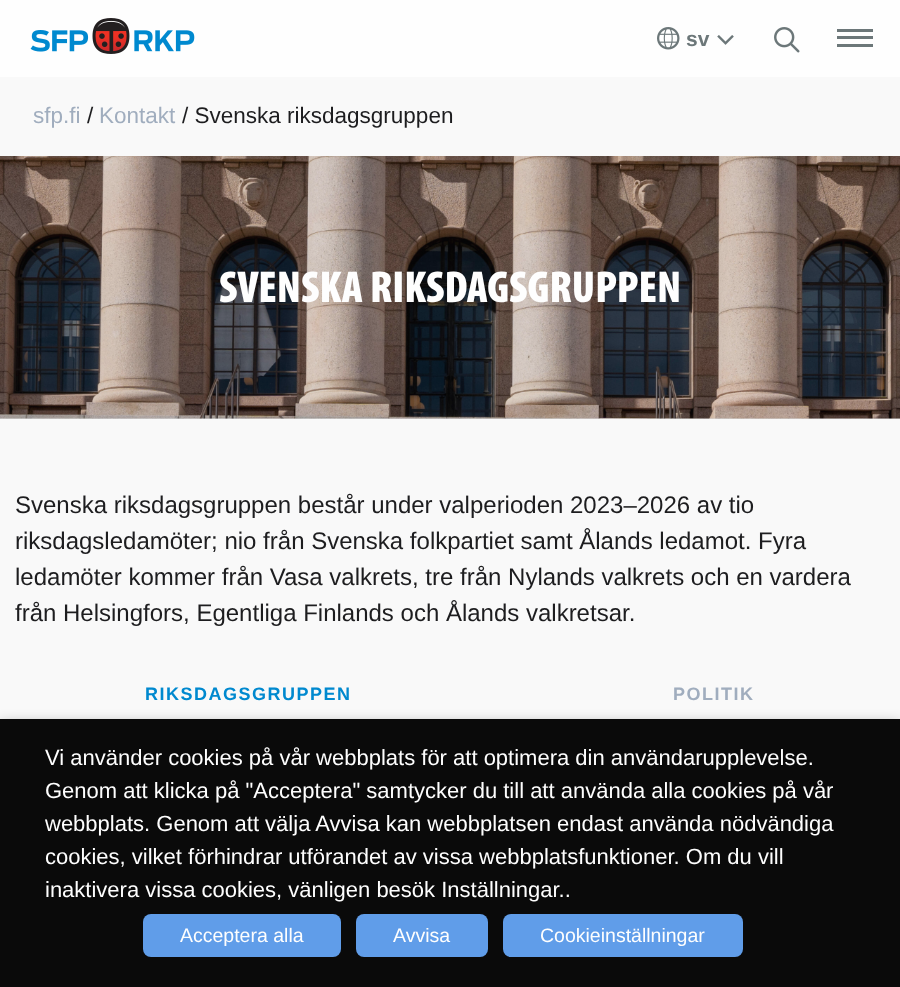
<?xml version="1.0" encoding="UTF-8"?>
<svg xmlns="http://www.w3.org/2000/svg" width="900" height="987">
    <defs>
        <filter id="blur1" x="-50%" y="-200%" width="200%" height="500%"><feGaussianBlur stdDeviation="7.5"/></filter>
    </defs>
    <rect width="100%" height="100%" fill="#F9F9F9"/>
    <rect x="0" y="418" width="900" height="1" fill="#D8D8D8"/>
    <rect x="0" y="0" width="900" height="77" fill="#FEFEFE"/>
    <image x="30" y="18" width="165" height="36" href="img_01.png"/>
    <image x="657" y="27" width="23" height="23" href="img_02.png"/>
    <image x="717" y="35" width="17" height="10" href="img_03.png"/>
    <text x="686" y="46" font-family="Liberation Sans" font-size="21" font-weight="700" fill="#6C7779">sv</text>
    <image x="774" y="27" width="26" height="26" href="img_04.png"/>
    <rect x="837" y="29" width="36" height="3" fill="#6C7779"/>
    <rect x="837" y="36" width="36" height="3" fill="#6C7779"/>
    <rect x="837" y="44" width="36" height="3" fill="#6C7779"/>
    <text x="33" y="123" font-family="Liberation Sans" font-size="22.5" fill="#A0ADBE">sfp.fi</text>
    <text x="87" y="123" font-family="Liberation Sans" font-size="22.5" fill="#1D1D1F">/</text>
    <text x="99" y="123" font-family="Liberation Sans" font-size="22.5" fill="#A0ADBE">Kontakt</text>
    <text x="182" y="123" font-family="Liberation Sans" font-size="22.5" fill="#1D1D1F">/ Svenska riksdagsgruppen</text>
    <image x="0" y="156" width="900" height="263" href="img_05.png"/>
    <text x="219" y="302" font-family="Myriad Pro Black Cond" font-size="45" font-weight="900" fill="#FEFEFE">SVENSKA RIKSDAGSGRUPPEN</text>
    <text font-family="Liberation Sans" font-size="24" fill="#1D1D1F">
        <tspan x="15" y="513">Svenska riksdagsgruppen består under valperioden 2023–2026 av tio</tspan>
        <tspan x="15" y="549">riksdagsledamöter; nio från Svenska folkpartiet samt Ålands ledamot. Fyra</tspan>
        <tspan x="15" y="585">ledamöter kommer från Vasa valkrets, tre från Nylands valkrets och en vardera</tspan>
        <tspan x="15" y="621">från Helsingfors, Egentliga Finlands och Ålands valkretsar.</tspan>
    </text>
    <text x="145" y="700" font-family="Liberation Sans" font-size="18" font-weight="700" letter-spacing="1.5" fill="#0089CF">RIKSDAGSGRUPPEN</text>
    <text x="673" y="700" font-family="Liberation Sans" font-size="18" font-weight="700" letter-spacing="1.5" fill="#A0ADBE">POLITIK</text>
    <rect x="0" y="726" width="900" height="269" fill="#000000" fill-opacity="0.5" filter="url(#blur1)"/>
    <rect x="0" y="719" width="900" height="268" fill="#0A0A0A"/>
    <text font-family="Liberation Sans" font-size="22" fill="#FEFEFE">
        <tspan x="45" y="765">Vi använder cookies på vår webbplats för att optimera din användarupplevelse.</tspan>
        <tspan x="45" y="798">Genom att klicka på "Acceptera" samtycker du till att använda alla cookies på vår</tspan>
        <tspan x="45" y="831">webbplats. Genom att välja Avvisa kan webbplatsen endast använda nödvändiga</tspan>
        <tspan x="45" y="864">cookies, vilket förhindrar utförandet av vissa webbplatsfunktioner. Om du vill</tspan>
        <tspan x="45" y="897">inaktivera vissa cookies, vänligen besök Inställningar..</tspan>
    </text>
    <rect x="143" y="914" width="198" height="43" rx="8" fill="#609DE9"/>
    <text x="180" y="942" font-family="Liberation Sans" font-size="19.5" fill="#FEFEFE">Acceptera alla</text>
    <rect x="356" y="914" width="132" height="43" rx="8" fill="#609DE9"/>
    <text x="393" y="942" font-family="Liberation Sans" font-size="19.5" fill="#FEFEFE">Avvisa</text>
    <rect x="503" y="914" width="240" height="43" rx="8" fill="#609DE9"/>
    <text x="540" y="942" font-family="Liberation Sans" font-size="19.5" fill="#FEFEFE">Cookieinställningar</text>
</svg>
